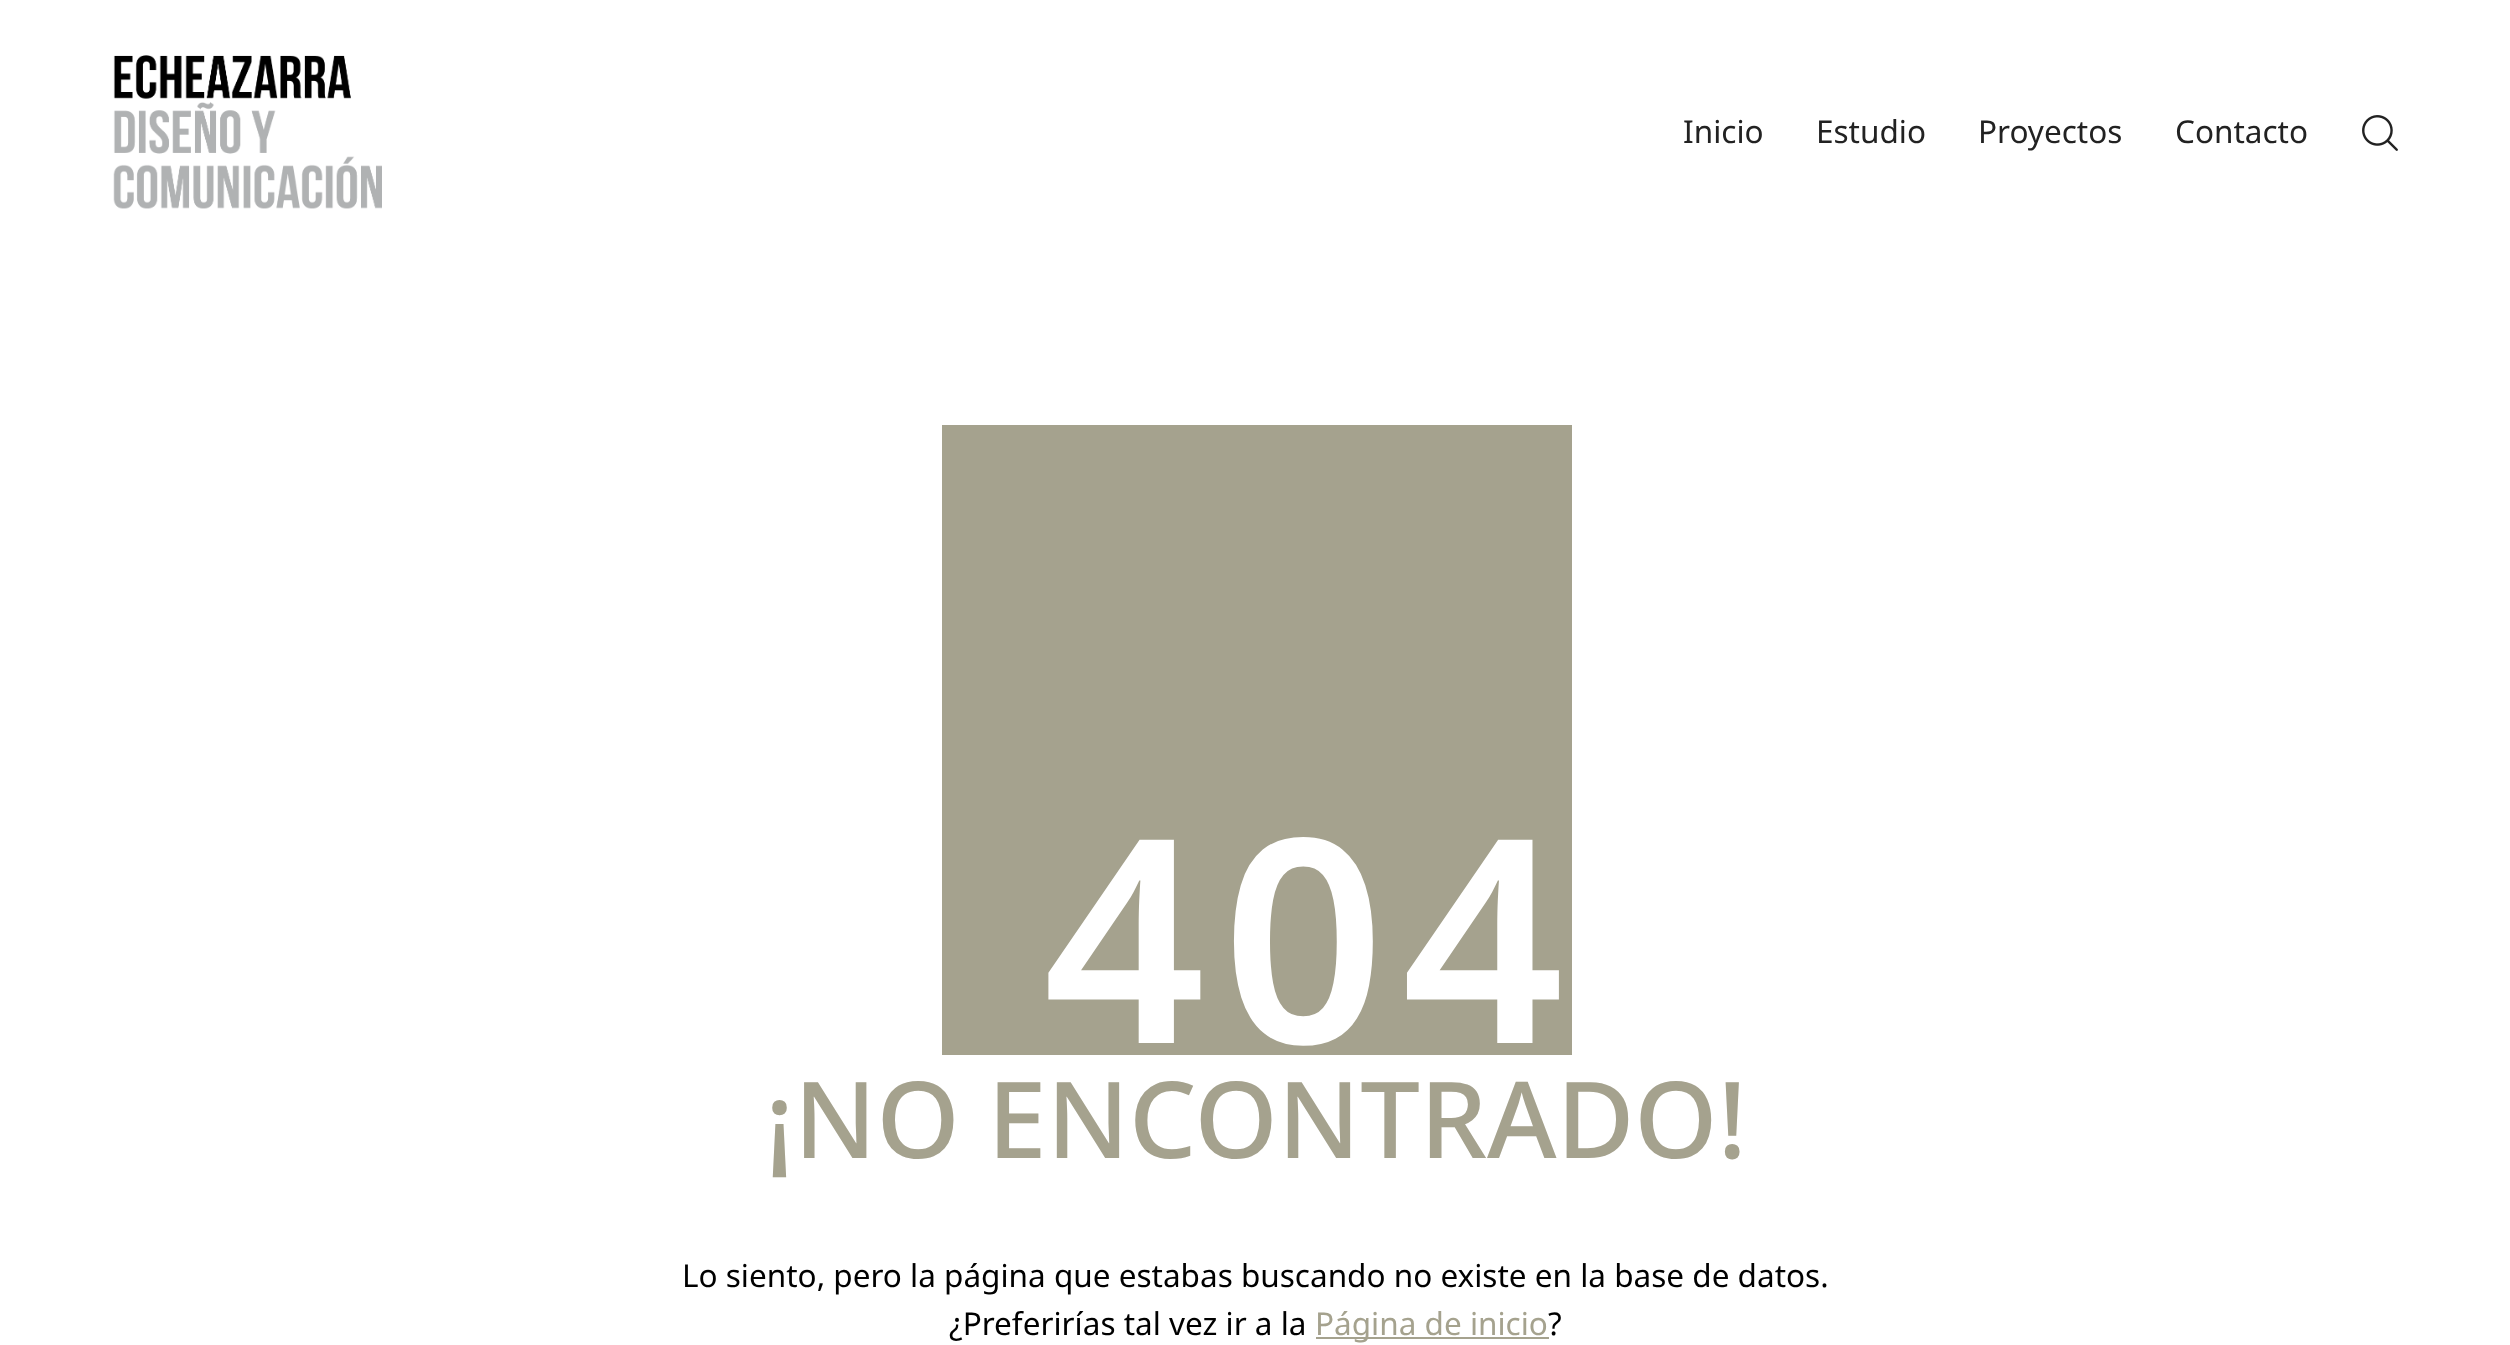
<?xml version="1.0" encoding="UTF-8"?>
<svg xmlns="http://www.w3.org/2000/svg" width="2510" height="1345">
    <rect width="100%" height="100%" fill="#FFFFFF"/>
    <image x="113" y="55" width="269" height="154" href="img_01.png"/>
    <text x="1683" y="143" font-family="Noto Sans" font-size="31.5" fill="#222222">Inicio</text>
    <text x="1816" y="143" font-family="Noto Sans" font-size="31.5" fill="#222222">Estudio</text>
    <text x="1978" y="143" font-family="Noto Sans" font-size="31.5" fill="#222222">Proyectos</text>
    <text x="2175" y="143" font-family="Noto Sans" font-size="31.5" fill="#222222">Contacto</text>
    <image x="2362" y="115" width="36" height="36" href="img_02.png"/>
    <rect x="942" y="425" width="630" height="630" fill="#A5A28E"/>
    <text x="1043" y="1043" font-family="Noto Sans" font-size="284" font-weight="600" letter-spacing="-28.5" fill="#FFFFFF">4 0 4</text>
    <text x="765" y="1158" font-family="Noto Sans" font-size="106.25" font-weight="500" fill="#A5A28E">¡NO ENCONTRADO!</text>
    <text x="682" y="1287" font-family="Noto Sans" font-size="31.5" fill="#000000">Lo siento, pero la página que estabas buscando no existe en la base de datos.</text>
    <text x="949" y="1335" font-family="Noto Sans" font-size="31.5" fill="#000000">¿Preferirías tal vez ir a la</text>
    <rect x="1316" y="1337" width="233" height="2" fill="#A5A28E"/>
    <text x="1315" y="1335" font-family="Noto Sans" font-size="31.5" fill="#A5A28E">Página de inicio</text>
    <text x="1548" y="1335" font-family="Noto Sans" font-size="31.5" fill="#000000">?</text>
</svg>
